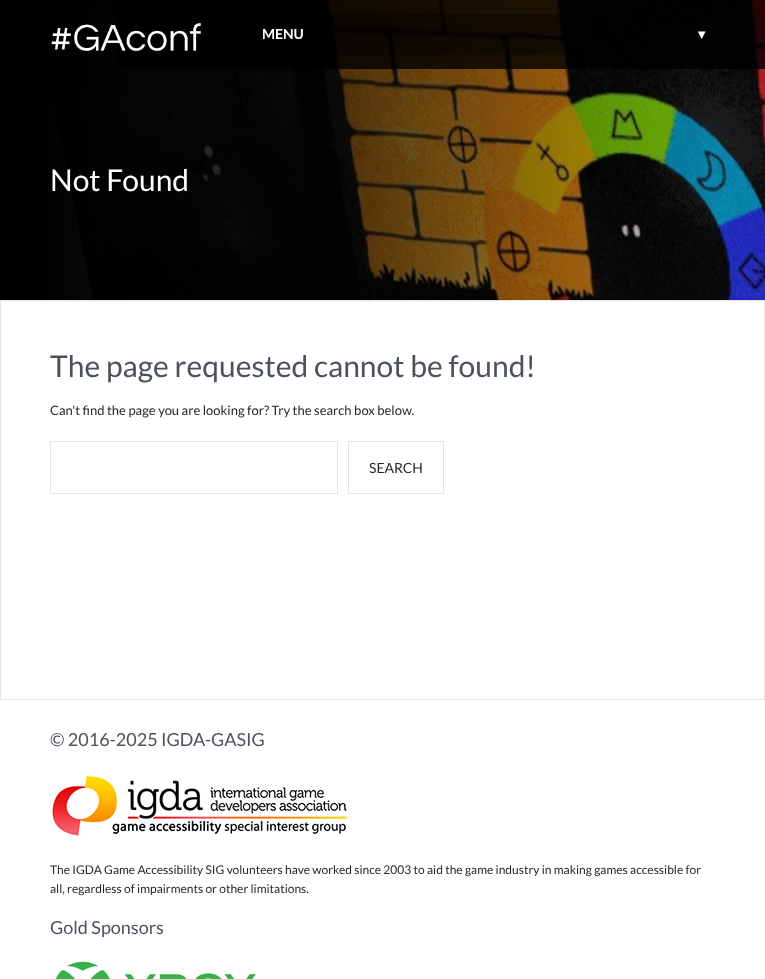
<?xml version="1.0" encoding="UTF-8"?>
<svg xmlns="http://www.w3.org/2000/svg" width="765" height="979">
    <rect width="100%" height="100%" fill="#FFFFFF"/>
    <image x="0" y="0" width="765" height="300" href="img_02.png"/>
    <rect x="117" y="0" width="648" height="69" fill="#000000" fill-opacity="0.8"/>
    <image x="51" y="23" width="150" height="28" href="img_01.png"/>
    <rect x="332" y="14" width="234" height="41" fill="#000000" fill-opacity="0.3"/>
    <text x="262" y="39" font-family="Lato" font-size="14" font-weight="700" fill="#FFFFFF">MENU</text>
    <text x="698" y="39" font-family="DejaVu Sans" font-size="14" font-weight="700" fill="#FFFFFF">▾</text>
    <text x="50" y="191" font-family="Lato" font-size="30" fill="#FFFFFF">Not Found</text>
    <rect x="0.5" y="300.5" width="764" height="399" fill="none" stroke="#E1E3E7"/>
    <text x="50" y="377" font-family="Lato" font-size="30" fill="#4D515C">The page requested cannot be found!</text>
    <text x="50" y="415" font-family="Lato" font-size="13" fill="#282828">Can't find the page you are looking for? Try the search box below.</text>
    <rect x="50.5" y="441.5" width="287" height="52" fill="none" stroke="#E1E3E7"/>
    <rect x="348.5" y="441.5" width="95" height="52" fill="none" stroke="#E1E3E7"/>
    <text x="369" y="473" font-family="Lato" font-size="14" fill="#282828">SEARCH</text>
    <text x="50" y="746" font-family="Lato" font-size="18" fill="#4D515C">© 2016-2025 IGDA-GASIG</text>
    <image x="52" y="775" width="295" height="61" href="img_03.png"/>
    <text font-family="Lato" font-size="12" fill="#282828">
        <tspan x="50" y="874">The IGDA Game Accessibility SIG volunteers have worked since 2003 to aid the game industry in making games accessible for</tspan>
        <tspan x="50" y="893">all, regardless of impairments or other limitations.</tspan>
    </text>
    <text x="50" y="934" font-family="Lato" font-size="18" fill="#4D515C">Gold Sponsors</text>
    <image x="55" y="961" width="201" height="18" href="img_04.png"/>
</svg>
